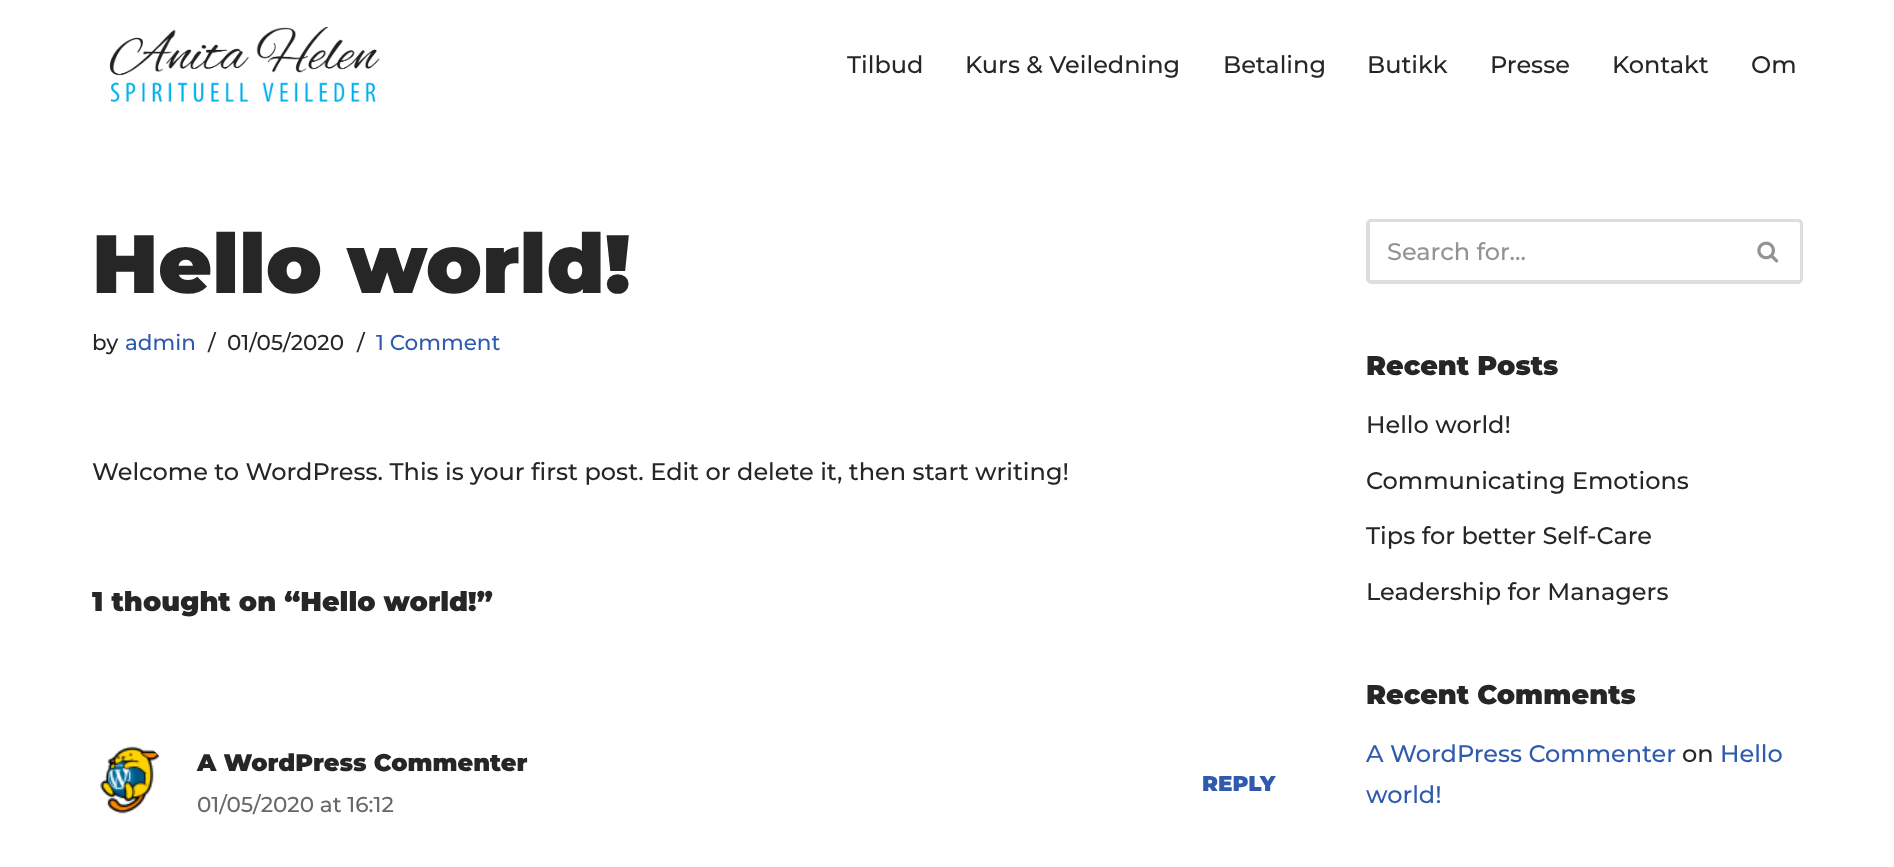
<?xml version="1.0" encoding="UTF-8"?>
<svg xmlns="http://www.w3.org/2000/svg" width="1894" height="867">
    <rect width="100%" height="100%" fill="#FFFFFF"/>
    <image x="109" y="27" width="271" height="75" href="img_01.png"/>
    <text x="847" y="73" font-family="Montserrat" font-size="24" font-weight="500" fill="#272626">Tilbud</text>
    <text x="965" y="73" font-family="Montserrat" font-size="24" font-weight="500" fill="#272626">Kurs &amp; Veiledning</text>
    <text x="1223" y="73" font-family="Montserrat" font-size="24" font-weight="500" fill="#272626">Betaling</text>
    <text x="1367" y="73" font-family="Montserrat" font-size="24" font-weight="500" fill="#272626">Butikk</text>
    <text x="1490" y="73" font-family="Montserrat" font-size="24" font-weight="500" fill="#272626">Presse</text>
    <text x="1612" y="73" font-family="Montserrat" font-size="24" font-weight="500" fill="#272626">Kontakt</text>
    <text x="1751" y="73" font-family="Montserrat" font-size="24" font-weight="500" fill="#272626">Om</text>
    <text x="92" y="293" font-family="Montserrat" font-size="82.5" font-weight="900" fill="#272626">Hello world!</text>
    <text x="92" y="350" font-family="Montserrat" font-size="21.5" font-weight="500" fill="#272626">by</text>
    <text x="125" y="350" font-family="Montserrat" font-size="21.5" font-weight="500" fill="#2F5AAE">admin</text>
    <text x="208" y="350" font-family="Montserrat" font-size="21.5" font-weight="500" fill="#272626">/</text>
    <text x="227" y="350" font-family="Montserrat" font-size="21.5" font-weight="500" fill="#272626">01/05/2020</text>
    <text x="357" y="350" font-family="Montserrat" font-size="21.5" font-weight="500" fill="#272626">/</text>
    <text x="376" y="350" font-family="Montserrat" font-size="21.5" font-weight="500" fill="#2F5AAE">1 Comment</text>
    <text x="92" y="480" font-family="Montserrat" font-size="24" font-weight="500" fill="#272626">Welcome to WordPress. This is your first post. Edit or delete it, then start writing!</text>
    <text x="92" y="611" font-family="Montserrat" font-size="27" font-weight="900" fill="#272626">1 thought on “Hello world!”</text>
    <image x="100" y="746" width="60" height="68" href="img_02.png"/>
    <text x="197" y="771" font-family="Montserrat" font-size="24" font-weight="900" fill="#272626">A WordPress Commenter</text>
    <text x="197" y="812" font-family="Montserrat" font-size="21.5" font-weight="500" fill="#686767">01/05/2020 at 16:12</text>
    <text x="1202" y="791" font-family="Montserrat" font-size="21.5" font-weight="900" fill="#2F5AAE">REPLY</text>
    <path d="M 1371 219 H 1736 V 284 H 1371 C 1369 284 1366 281 1366 279 V 224 C 1366 221 1369 219 1371 219 Z M 1371 222 H 1736 V 280 H 1371 C 1370 280 1370 280 1370 279 V 224 C 1370 223 1370 222 1371 222 Z" fill="#DDDDDD" fill-rule="evenodd"/>
    <text x="1387" y="260" font-family="Montserrat" font-size="24" font-weight="500" fill="#939393">Search for...</text>
    <path d="M 1736 219 H 1798 C 1801 219 1803 221 1803 224 V 279 C 1803 281 1801 284 1798 284 H 1736 Z M 1736 222 H 1798 C 1799 222 1800 223 1800 224 V 279 C 1800 280 1799 280 1798 280 H 1736 Z" fill="#DDDDDD" fill-rule="evenodd"/>
    <image x="1757" y="241" width="22" height="22" href="img_03.png"/>
    <text x="1366" y="375" font-family="Montserrat" font-size="27" font-weight="900" fill="#272626">Recent Posts</text>
    <text x="1366" y="433" font-family="Montserrat" font-size="24" font-weight="500" fill="#272626">Hello world!</text>
    <text x="1366" y="489" font-family="Montserrat" font-size="24" font-weight="500" fill="#272626">Communicating Emotions</text>
    <text x="1366" y="544" font-family="Montserrat" font-size="24" font-weight="500" fill="#272626">Tips for better Self-Care</text>
    <text x="1366" y="600" font-family="Montserrat" font-size="24" font-weight="500" fill="#272626">Leadership for Managers</text>
    <text x="1366" y="704" font-family="Montserrat" font-size="27" font-weight="900" fill="#272626">Recent Comments</text>
    <text x="1366" y="762" font-family="Montserrat" font-size="24" font-weight="500" fill="#2F5AAE">A WordPress Commenter</text>
    <text x="1682" y="762" font-family="Montserrat" font-size="24" font-weight="500" fill="#272626">on</text>
    <text x="1720" y="762" font-family="Montserrat" font-size="24" font-weight="500" fill="#2F5AAE">Hello</text>
    <text x="1366" y="803" font-family="Montserrat" font-size="24" font-weight="500" fill="#2F5AAE">world!</text>
</svg>
